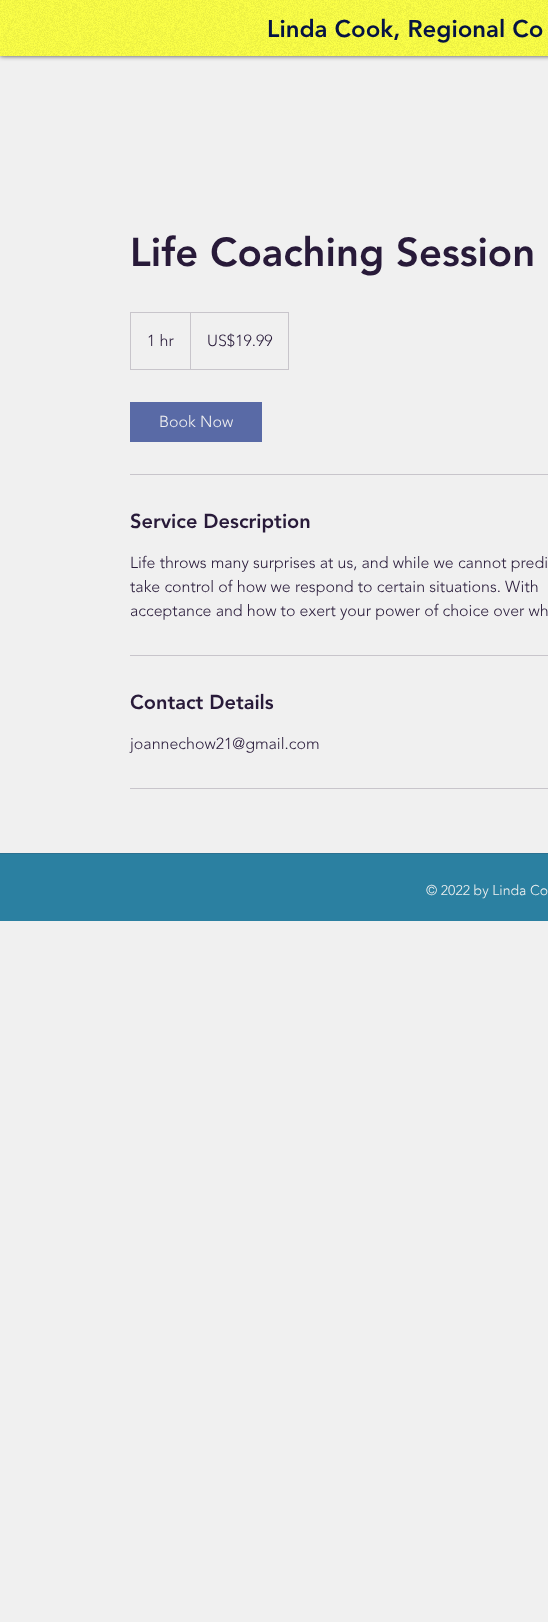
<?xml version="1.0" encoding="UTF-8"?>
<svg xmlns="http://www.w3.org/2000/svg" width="548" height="1622">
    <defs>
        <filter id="blur1" x="-50%" y="-200%" width="200%" height="500%"><feGaussianBlur stdDeviation="2.5"/></filter>
    </defs>
    <rect width="100%" height="100%" fill="#F0F0F0"/>
    <rect x="0" y="0" width="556" height="56" fill="#000000" fill-opacity="0.7" filter="url(#blur1)"/>
    <rect x="0" y="0" width="548" height="56" fill="#FBFF46"/>
    <image x="0" y="0" width="548" height="56" href="img_01.png"/>
    <text x="267" y="37" font-family="'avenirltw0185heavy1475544'" font-size="24" font-weight="900" fill="#051344">Linda Cook, Regional Co</text>
    <text x="130" y="266" font-family="'avenirltw0185heavy1475544'" font-size="40" font-weight="900" fill="#281A39">Life Coaching Session</text>
    <rect x="130.5" y="312.5" width="158" height="57" fill="none" stroke="#C8C5CB"/>
    <text x="147" y="346" font-family="'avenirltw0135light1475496'" font-size="16" font-weight="300" fill="#281A39">1 hr</text>
    <path d="M 190 369 V 312 L 191 313 V 369 Z" fill="#C8C5CB"/>
    <text x="207" y="346" font-family="'avenirltw0135light1475496'" font-size="16" font-weight="300" fill="#281A39">US$19.99</text>
    <rect x="130" y="402" width="132" height="40" fill="#596AA6"/>
    <text x="159" y="427" font-family="'avenirltw0135light1475496'" font-size="16" font-weight="300" fill="#F0F0F0">Book Now</text>
    <rect x="130" y="474" width="418" height="1" fill="#C8C5CB"/>
    <text x="130" y="528" font-family="'avenirltw0185heavy1475544'" font-size="20" font-weight="900" fill="#281A39">Service Description</text>
    <text font-family="'avenirltw0135light1475496'" font-size="16" font-weight="300" fill="#281A39">
        <tspan x="130" y="568">Life throws many surprises at us, and while we cannot predi</tspan>
        <tspan x="130" y="592">take control of how we respond to certain situations. With</tspan>
        <tspan x="130" y="616">acceptance and how to exert your power of choice over wh</tspan>
    </text>
    <rect x="130" y="655" width="418" height="1" fill="#C8C5CB"/>
    <text x="130" y="709" font-family="'avenirltw0185heavy1475544'" font-size="20" font-weight="900" fill="#281A39">Contact Details</text>
    <text x="130" y="749" font-family="'avenirltw0135light1475496'" font-size="16" font-weight="300" fill="#281A39">joannechow21@gmail.com</text>
    <rect x="130" y="788" width="418" height="1" fill="#C8C5CB"/>
    <rect x="0" y="854" width="548" height="67" fill="#2B80A1"/>
    <rect x="0" y="853" width="548" height="1" fill="#2B7191"/>
    <text x="426" y="895" font-family="'avenirltw0135light1475496'" font-size="14" font-weight="300" fill="#F0F0F0">© 2022 by Linda Co</text>
</svg>
